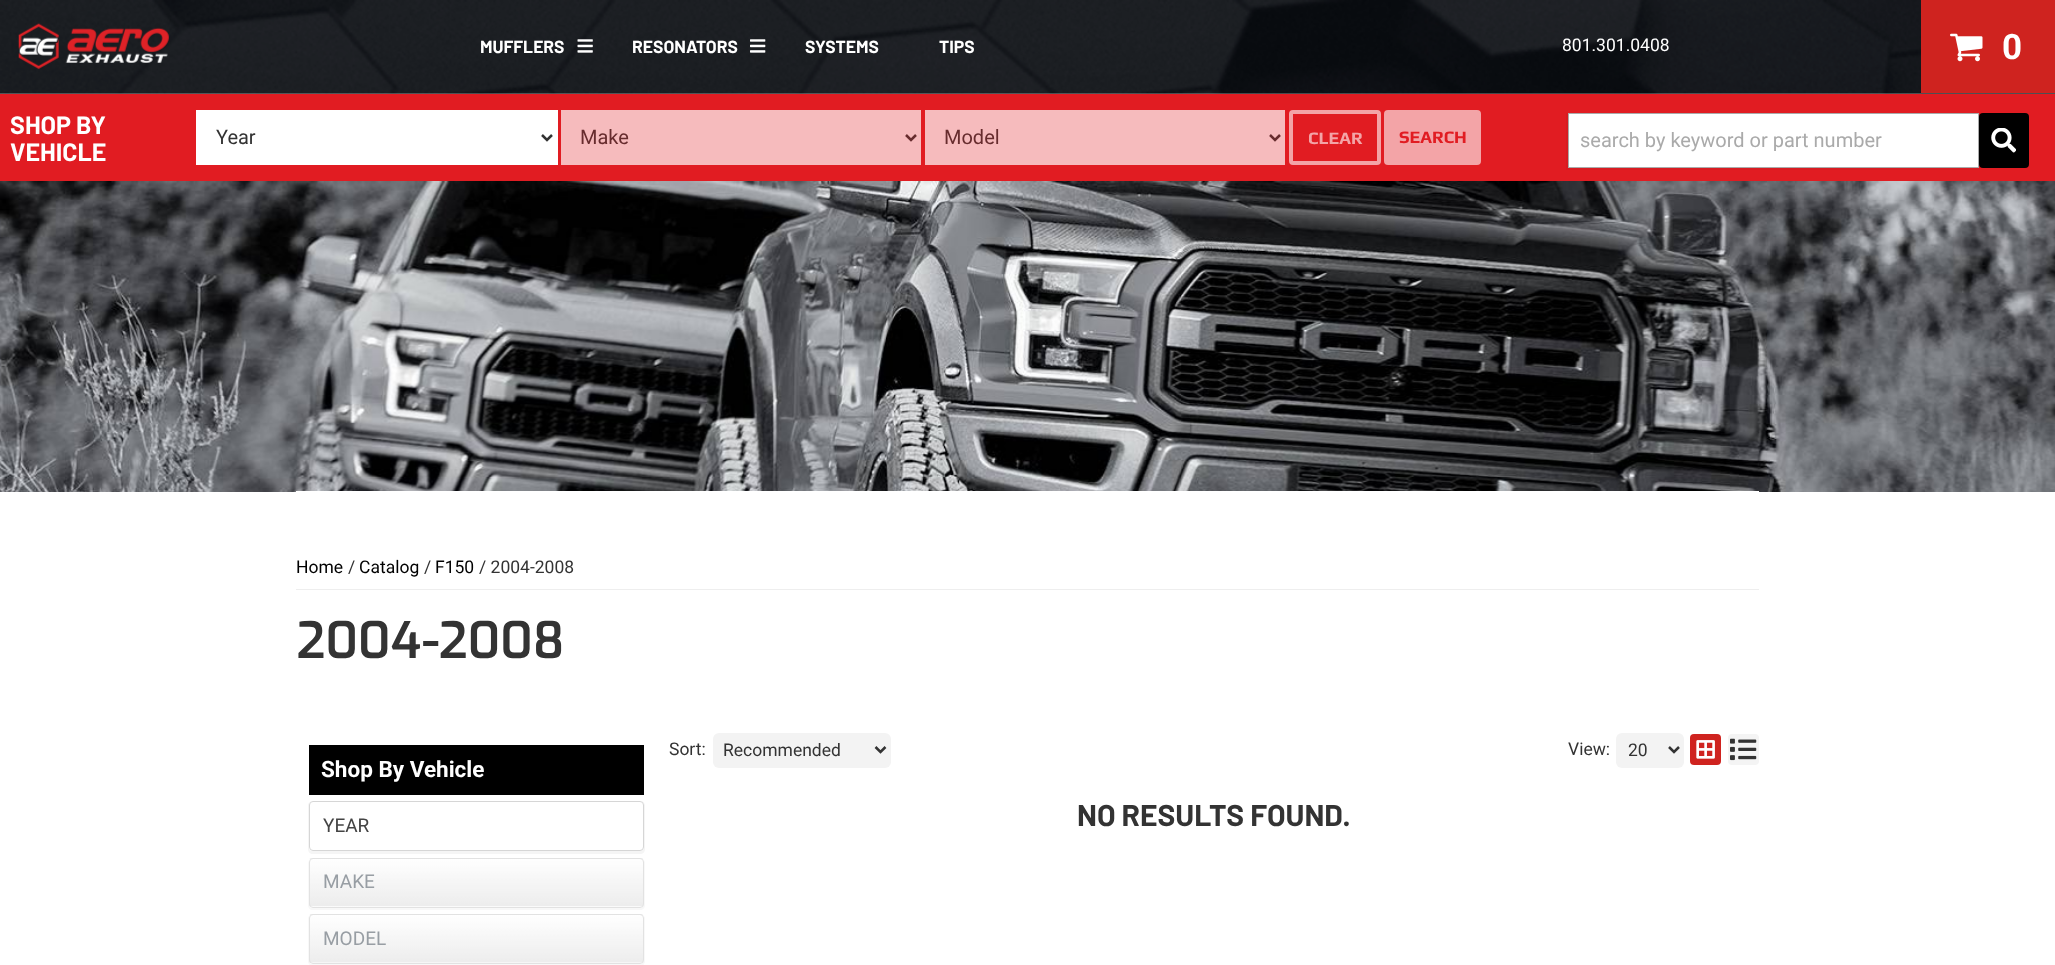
<?xml version="1.0" encoding="UTF-8"?>
<svg xmlns="http://www.w3.org/2000/svg" width="2055" height="965">
    <rect width="100%" height="100%" fill="#FFFFFF"/>
    <image x="0" y="0" width="2055" height="94" href="img_01.png"/>
    <image x="18" y="23" width="151" height="46" href="img_02.png"/>
    <text x="480" y="53" font-family="Barlow" font-size="17.5" font-weight="700" fill="#FFFFFF">MUFFLERS</text>
    <image x="577" y="39" width="16" height="14" href="img_03.png"/>
    <text x="632" y="53" font-family="Barlow" font-size="17.5" font-weight="700" fill="#FFFFFF">RESONATORS</text>
    <image x="750" y="39" width="16" height="14" href="img_04.png"/>
    <text x="805" y="53" font-family="Barlow" font-size="17.5" font-weight="700" fill="#FFFFFF">SYSTEMS</text>
    <text x="939" y="53" font-family="Barlow" font-size="17.5" font-weight="700" fill="#FFFFFF">TIPS</text>
    <text x="1562" y="51" font-family="Roboto" font-size="17.5" fill="#FFFFFF">801.301.0408</text>
    <rect x="1921" y="0" width="134" height="93" fill="#CF231F"/>
    <image x="1950" y="33" width="33" height="29" href="img_05.png"/>
    <text x="2002" y="59" font-family="Roboto" font-size="35" font-weight="700" fill="#FFFFFF">0</text>
    <rect x="0" y="94" width="2055" height="87" fill="#E11C22"/>
    <text font-family="Barlow" font-size="25" font-weight="700" fill="#FFFFFF">
        <tspan x="10" y="134">SHOP BY</tspan>
        <tspan x="10" y="161">VEHICLE</tspan>
    </text>
    <rect x="196" y="110" width="362" height="55" fill="#FFFFFF"/>
    <path d="M 542 135 L 547 140 L 552 135" fill="none" stroke="#333333" stroke-width="2.5"/>
    <text x="216" y="144" font-family="Roboto" font-size="20" fill="#333333">Year</text>
    <rect x="561" y="110" width="360" height="55" fill="#F6BBBD"/>
    <path d="M 906 135 L 911 140 L 916 135" fill="none" stroke="#672C2E" stroke-width="2.5"/>
    <text x="580" y="144" font-family="Roboto" font-size="20" fill="#672C2E">Make</text>
    <rect x="925" y="110" width="360" height="55" fill="#F6BBBD"/>
    <path d="M 1270 135 L 1275 140 L 1280 135" fill="none" stroke="#672C2E" stroke-width="2.5"/>
    <text x="944" y="144" font-family="Roboto" font-size="20" fill="#672C2E">Model</text>
    <rect x="1291" y="112" width="88" height="51" rx="2" fill="none" stroke="#F3A4A7" stroke-width="4"/>
    <text x="1308" y="144" font-family="Play" font-size="17.5" font-weight="700" fill="#F3A4A7">CLEAR</text>
    <rect x="1384" y="110" width="97" height="55" rx="4" fill="#F3A4A7"/>
    <text x="1399" y="143" font-family="Play" font-size="17.5" font-weight="700" fill="#E11C22">SEARCH</text>
    <path d="M 1566 113 V 170 H 1980 V 113 H 1979 V 168 H 1568 V 113 Z" fill="#D81B21"/>
    <rect x="1568.5" y="113.5" width="410" height="54" fill="#FFFFFF" stroke="#AAAAAA"/>
    <text x="1580" y="147" font-family="Roboto" font-size="20" fill="#AAAAAA">search by keyword or part number</text>
    <rect x="1979" y="113" width="50" height="55" rx="4" fill="#000000"/>
    <image x="1991" y="128" width="25" height="25" href="img_06.png"/>
    <image x="0" y="181" width="2055" height="311" href="img_07.png"/>
    <rect x="296" y="491" width="1463" height="1" fill="#FFFFFF"/>
    <rect x="296" y="589" width="1463" height="1" fill="#EEEEEE"/>
    <text x="296" y="573" font-family="Roboto" font-size="17.5" fill="#000000">Home</text>
    <text x="348" y="573" font-family="Roboto" font-size="17.5" fill="#333333">/</text>
    <text x="359" y="573" font-family="Roboto" font-size="17.5" fill="#000000">Catalog</text>
    <text x="424" y="573" font-family="Roboto" font-size="17.5" fill="#333333">/</text>
    <text x="435" y="573" font-family="Roboto" font-size="17.5" fill="#000000">F150</text>
    <text x="479" y="573" font-family="Roboto" font-size="17.5" fill="#333333">/ 2004-2008</text>
    <text x="296" y="658" font-family="Exo" font-size="50" font-weight="600" fill="#333333">2004-2008</text>
    <rect x="309" y="745" width="335" height="50" fill="#000000"/>
    <text x="321" y="777" font-family="Roboto" font-size="22.5" font-weight="700" fill="#FFFFFF">Shop By Vehicle</text>
    <path d="M 313 801 C 310 801 308 803 308 806 V 849 C 308 852 310 854 313 854 H 640 C 643 854 645 852 645 849 V 806 C 645 803 643 801 640 801 Z M 312 801 C 310 801 309 803 309 805 V 848 C 309 850 310 851 312 851 H 640 C 642 851 644 850 644 848 V 805 C 644 803 642 801 640 801 Z" fill="#F5F5F5" fill-rule="evenodd"/>
    <rect x="309.5" y="801.5" width="334" height="49" rx="3.5" fill="#FFFFFF" stroke="#D6D6D6"/>
    <text x="323" y="832" font-family="Roboto" font-size="19" fill="#444444">YEAR</text>
    <path d="M 309 860 L 308 863 V 905 C 308 908 310 910 313 910 H 640 C 643 910 645 908 645 905 V 863 C 645 861 644 860 643 859 L 644 861 V 904 C 644 906 642 908 640 908 H 312 C 310 908 309 906 309 904 Z" fill="#F8F8F8"/>
    <image x="309" y="858" width="335" height="49" href="img_08.png"/>
    <rect x="309.5" y="858.5" width="334" height="49" rx="3.5" fill="none" stroke="#E2E2E2"/>
    <text x="323" y="888" font-family="Roboto" font-size="19" fill="#989EA4">MAKE</text>
    <path d="M 309 916 C 308 917 308 918 308 919 V 961 C 308 964 310 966 313 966 H 640 C 643 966 645 964 645 961 V 919 C 645 917 644 915 642 915 C 643 915 644 916 644 918 V 960 C 644 962 642 964 640 964 H 312 C 310 964 309 962 309 960 V 918 Z" fill="#F8F8F8"/>
    <image x="309" y="914" width="335" height="49" href="img_09.png"/>
    <rect x="309.5" y="914.5" width="334" height="49" rx="3.5" fill="none" stroke="#E2E2E2"/>
    <text x="323" y="945" font-family="Roboto" font-size="19" fill="#989EA4">MODEL</text>
    <text x="669" y="755" font-family="Roboto" font-size="17.5" fill="#333333">Sort:</text>
    <rect x="713" y="733" width="178" height="35" rx="6" fill="#F3F3F3"/>
    <path d="M 875.5 747 L 880.5 752 L 885.5 747" fill="none" stroke="#333333" stroke-width="2.5"/>
    <text x="723" y="756" font-family="Roboto" font-size="17.5" fill="#333333">Recommended</text>
    <text x="1568" y="755" font-family="Roboto" font-size="17.5" fill="#333333">View:</text>
    <rect x="1616" y="733" width="68" height="35" rx="6" fill="#F3F3F3"/>
    <path d="M 1669 747 L 1674 752 L 1679 747" fill="none" stroke="#333333" stroke-width="2.5"/>
    <text x="1628" y="756" font-family="Roboto" font-size="17.5" fill="#333333">20</text>
    <rect x="1690" y="734" width="31" height="31" rx="4" fill="#CF231F"/>
    <image x="1696" y="740" width="19" height="19" href="img_10.png"/>
    <rect x="1728" y="734" width="31" height="31" rx="4" fill="#F4F4F4"/>
    <image x="1730" y="738" width="27" height="23" href="img_11.png"/>
    <text x="1077" y="826" font-family="Barlow" font-size="30" font-weight="700" fill="#333333">NO RESULTS FOUND.</text>
</svg>
